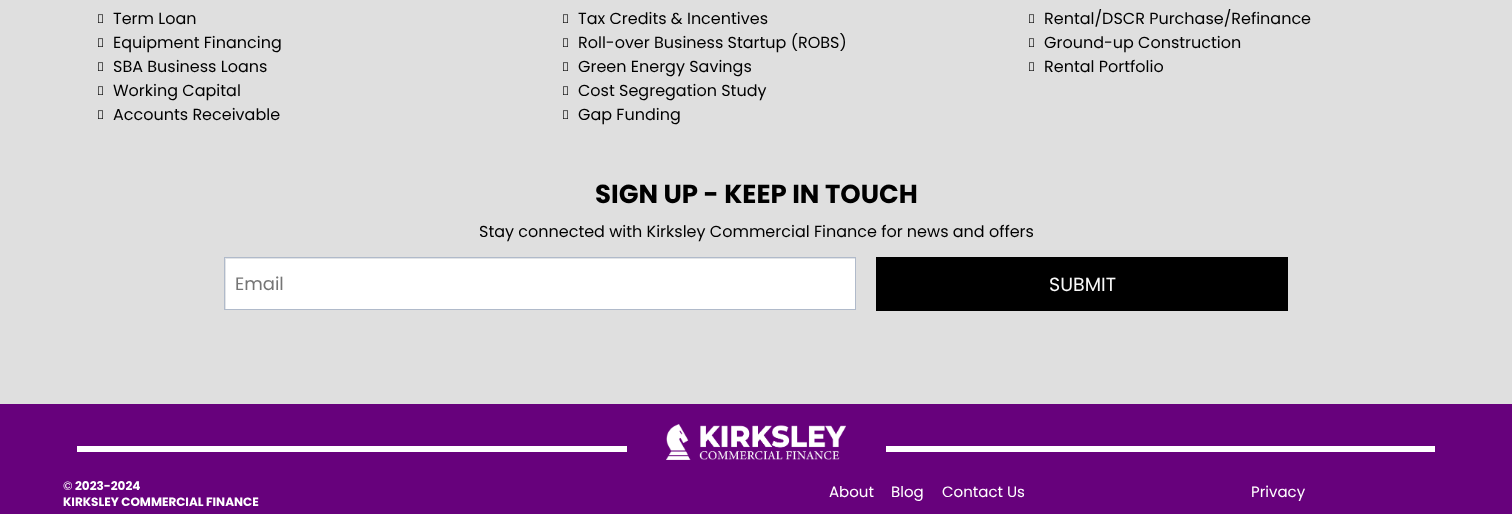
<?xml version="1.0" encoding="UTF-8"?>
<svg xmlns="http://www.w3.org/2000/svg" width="1512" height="514">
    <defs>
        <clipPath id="clip1"><rect x="225" y="258" width="630" height="51"/></clipPath>
    </defs>
    <rect width="100%" height="100%" fill="#DFDFDF"/>
    <image x="98" y="14" width="5" height="9" href="img_01.png"/>
    <text x="113" y="24" font-family="Poppins" font-size="16" fill="#000000">Term Loan</text>
    <image x="98" y="38" width="5" height="9" href="img_01.png"/>
    <text x="113" y="48" font-family="Poppins" font-size="16" fill="#000000">Equipment Financing</text>
    <image x="98" y="62" width="5" height="9" href="img_01.png"/>
    <text x="113" y="72" font-family="Poppins" font-size="16" fill="#000000">SBA Business Loans</text>
    <image x="98" y="86" width="5" height="9" href="img_01.png"/>
    <text x="113" y="96" font-family="Poppins" font-size="16" fill="#000000">Working Capital</text>
    <image x="98" y="110" width="5" height="9" href="img_01.png"/>
    <text x="113" y="120" font-family="Poppins" font-size="16" fill="#000000">Accounts Receivable</text>
    <image x="563" y="14" width="5" height="9" href="img_01.png"/>
    <text x="578" y="24" font-family="Poppins" font-size="16" fill="#000000">Tax Credits &amp; Incentives</text>
    <image x="563" y="38" width="5" height="9" href="img_01.png"/>
    <text x="578" y="48" font-family="Poppins" font-size="16" fill="#000000">Roll-over Business Startup (ROBS)</text>
    <image x="563" y="62" width="5" height="9" href="img_01.png"/>
    <text x="578" y="72" font-family="Poppins" font-size="16" fill="#000000">Green Energy Savings</text>
    <image x="563" y="86" width="5" height="9" href="img_01.png"/>
    <text x="578" y="96" font-family="Poppins" font-size="16" fill="#000000">Cost Segregation Study</text>
    <image x="563" y="110" width="5" height="9" href="img_01.png"/>
    <text x="578" y="120" font-family="Poppins" font-size="16" fill="#000000">Gap Funding</text>
    <image x="1029" y="14" width="5" height="9" href="img_01.png"/>
    <text x="1044" y="24" font-family="Poppins" font-size="16" fill="#000000">Rental/DSCR Purchase/Refinance</text>
    <image x="1029" y="38" width="5" height="9" href="img_01.png"/>
    <text x="1044" y="48" font-family="Poppins" font-size="16" fill="#000000">Ground-up Construction</text>
    <image x="1029" y="62" width="5" height="9" href="img_01.png"/>
    <text x="1044" y="72" font-family="Poppins" font-size="16" fill="#000000">Rental Portfolio</text>
    <text x="595" y="203" font-family="Poppins" font-size="26" font-weight="700" fill="#000000">SIGN UP - KEEP IN TOUCH</text>
    <text x="479" y="237" font-family="Poppins" font-size="16" fill="#000000">Stay connected with Kirksley Commercial Finance for news and offers</text>
    <rect x="226" y="259" width="629" height="50" fill="#FFFFFF"/>
    <g clip-path="url(#clip1)">
        <path d="M 126 159 H 954 V 408 H 126 Z M 226 259 H 856 V 310 H 226 Z" fill="#E2E4E7" fill-rule="evenodd"/>
    </g>
    <rect x="224.5" y="257.5" width="631" height="52" fill="none" stroke="#B0BACA"/>
    <text x="235" y="290" font-family="Poppins" font-size="18" fill="#757575">Email</text>
    <rect x="876" y="257" width="412" height="54" fill="#000000"/>
    <text x="1049" y="291" font-family="Poppins" font-size="19" fill="#F8F8F8">SUBMIT</text>
    <rect x="0" y="404" width="1512" height="110" fill="#67017C"/>
    <rect x="77" y="446" width="550" height="6" fill="#FFFFFF"/>
    <image x="666" y="424" width="180" height="36" href="img_02.png"/>
    <rect x="886" y="446" width="549" height="6" fill="#FFFFFF"/>
    <text x="63" y="490" font-family="Poppins" font-size="12" fill="#FFFFFF">©</text>
    <text x="75" y="490" font-family="Poppins" font-size="12" font-weight="700" fill="#FFFFFF">2023-2024</text>
    <text x="63" y="506" font-family="Poppins" font-size="12" font-weight="700" fill="#FFFFFF">KIRKSLEY COMMERCIAL FINANCE</text>
    <text x="829" y="497" font-family="Poppins" font-size="15" fill="#FFFFFF">About</text>
    <text x="891" y="497" font-family="Poppins" font-size="15" fill="#FFFFFF">Blog</text>
    <text x="942" y="497" font-family="Poppins" font-size="15" fill="#FFFFFF">Contact Us</text>
    <text x="1251" y="497" font-family="Poppins" font-size="15" fill="#FFFFFF">Privacy</text>
</svg>
